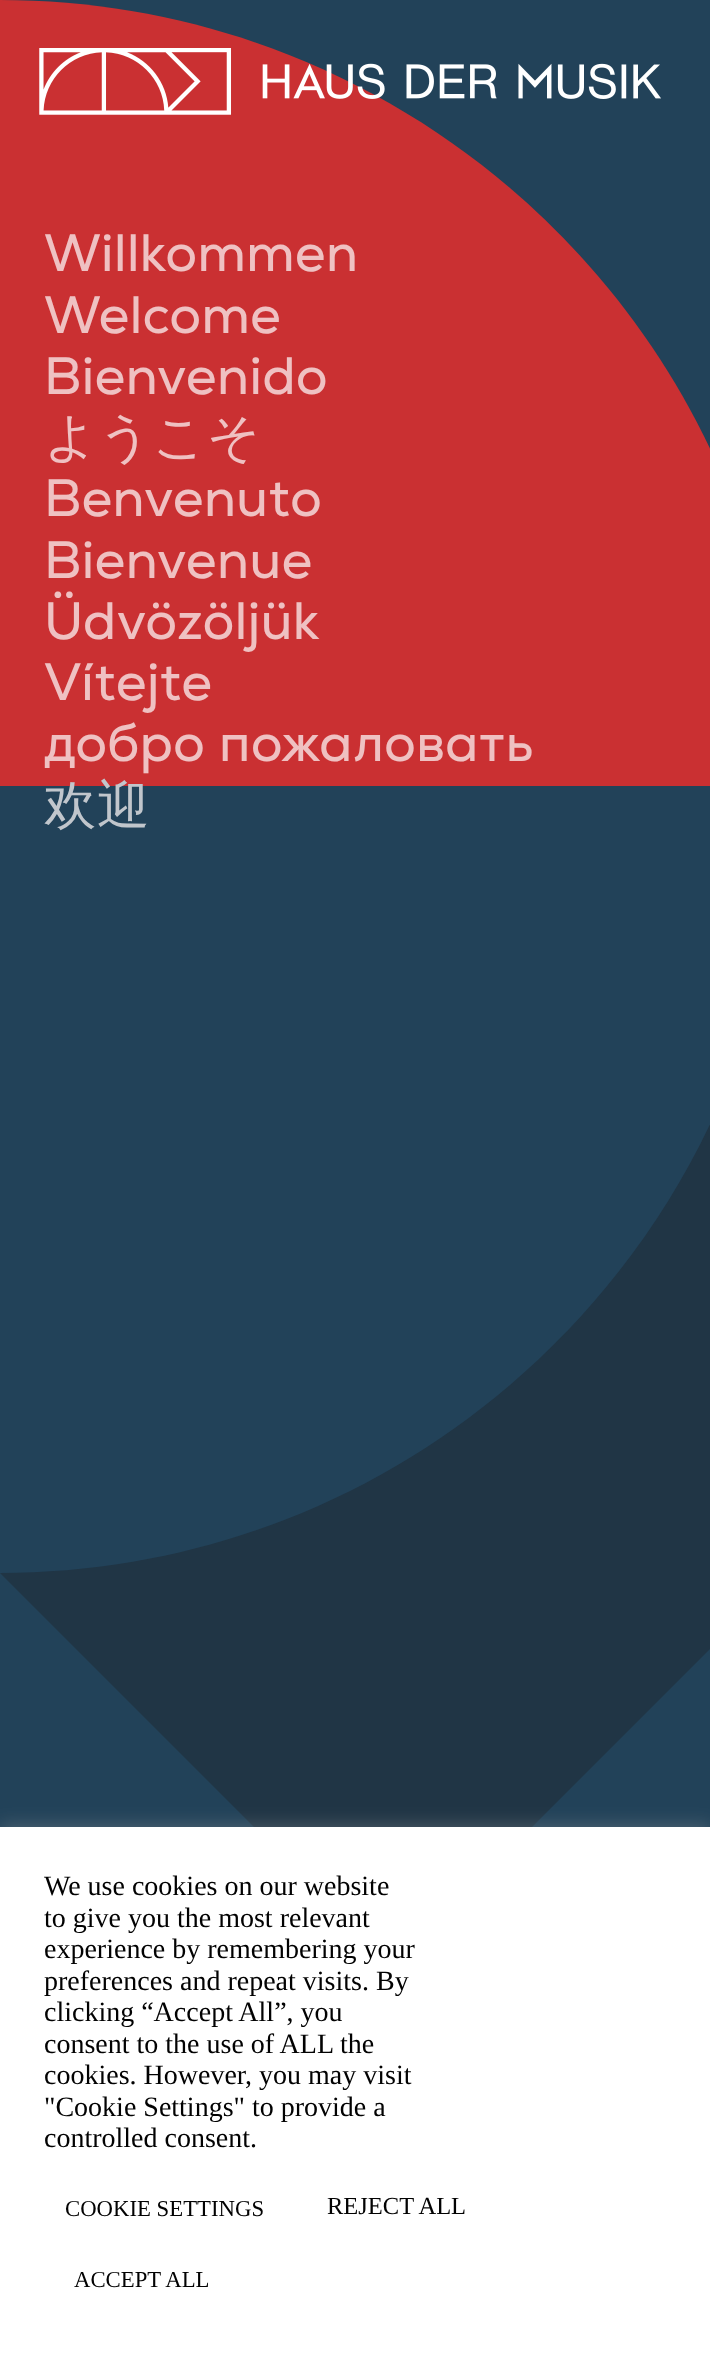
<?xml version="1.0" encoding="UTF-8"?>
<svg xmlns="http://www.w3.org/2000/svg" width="710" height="2359">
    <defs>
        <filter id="blur1" x="-50%" y="-200%" width="200%" height="500%"><feGaussianBlur stdDeviation="9"/></filter>
    </defs>
    <rect width="100%" height="100%" fill="#224259"/>
    <path d="M 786 786 H 0 V 0 C 434 0 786 352 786 786" fill="#CA3032"/>
    <image x="39" y="48" width="622" height="67" href="img_01.png"/>
    <rect x="2" y="1124" width="708" height="449" fill="#203545"/>
    <path d="M 0 1573 V 786 H 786 C 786 1221 434 1573 0 1573" fill="#224259"/>
    <path d="M 0 1573 L 393 1966 L 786 1573 Z" fill="#203545"/>
    <text font-family="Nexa" font-size="52.5" letter-spacing="0.5" fill="#EFC1C2">
        <tspan x="44" y="271">Willkommen</tspan>
        <tspan x="44" y="333">Welcome</tspan>
        <tspan x="44" y="394">Bienvenido</tspan>
    </text>
    <text x="44" y="455" font-family="WenQuanYi Zen Hei" font-size="52.5" font-weight="500" letter-spacing="0.5" fill="#EFC1C2">ようこそ</text>
    <text font-family="Nexa" font-size="52.5" letter-spacing="0.5" fill="#EFC1C2">
        <tspan x="44" y="516">Benvenuto</tspan>
        <tspan x="44" y="578">Bienvenue</tspan>
        <tspan x="44" y="639">Üdvözöljük</tspan>
        <tspan x="44" y="700">Vítejte</tspan>
        <tspan x="44" y="761">добро пожаловать</tspan>
    </text>
    <text x="44" y="823" font-family="WenQuanYi Zen Hei" font-size="52.5" font-weight="500" letter-spacing="0.5" fill="#C1C6CC">欢迎</text>
    <rect x="0" y="1825" width="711" height="532" fill="#ACABAB" fill-opacity="0.3" filter="url(#blur1)"/>
    <rect x="0" y="1827" width="710" height="532" fill="#FFFFFF"/>
    <text font-family="Liberation Serif" font-size="28" fill="#020202">
        <tspan x="44" y="1895">We use cookies on our website</tspan>
        <tspan x="44" y="1927">to give you the most relevant</tspan>
        <tspan x="44" y="1958">experience by remembering your</tspan>
        <tspan x="44" y="1990">preferences and repeat visits. By</tspan>
        <tspan x="44" y="2021">clicking “Accept All”, you</tspan>
        <tspan x="44" y="2053">consent to the use of ALL the</tspan>
        <tspan x="44" y="2084">cookies. However, you may visit</tspan>
        <tspan x="44" y="2116">"Cookie Settings" to provide a</tspan>
        <tspan x="44" y="2147">controlled consent.</tspan>
    </text>
    <text x="65" y="2216" font-family="Liberation Serif" font-size="22.75" fill="#020202">COOKIE SETTINGS</text>
    <text x="327" y="2214" font-family="Liberation Serif" font-size="24.5" fill="#020202">REJECT ALL</text>
    <text x="74" y="2287" font-family="Liberation Serif" font-size="22.75" fill="#020202">ACCEPT ALL</text>
</svg>
